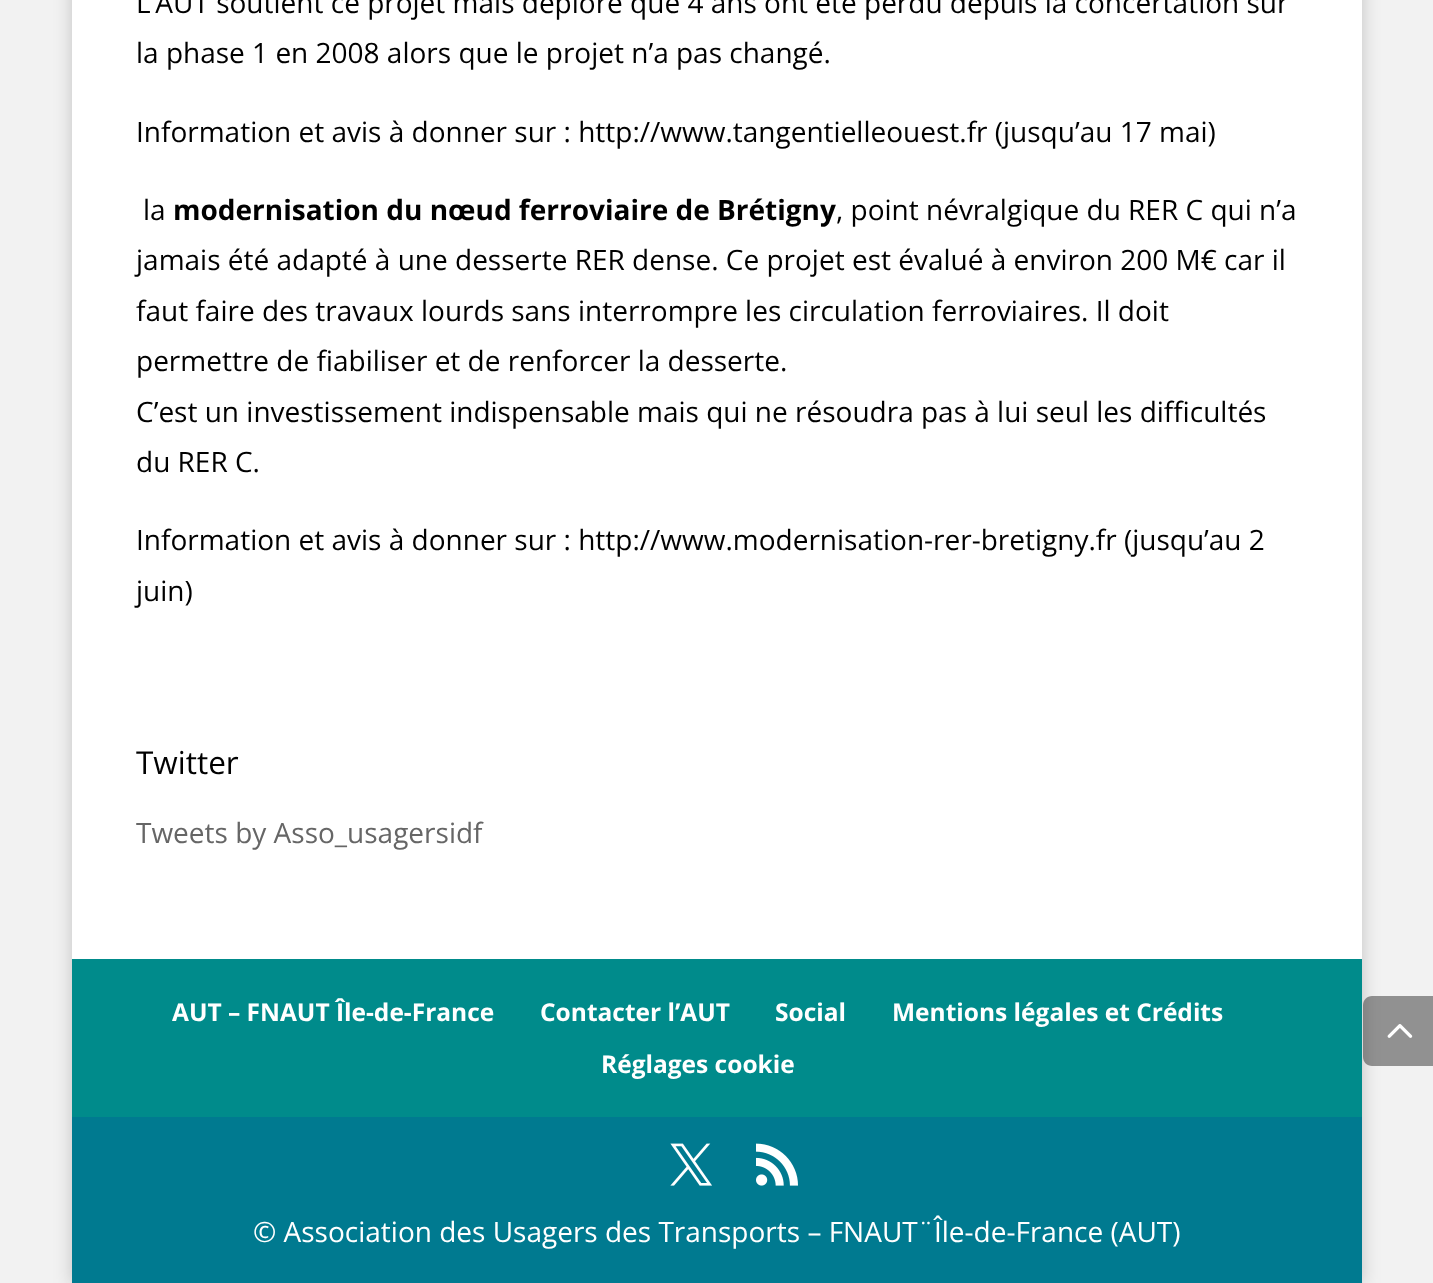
<?xml version="1.0" encoding="UTF-8"?>
<svg xmlns="http://www.w3.org/2000/svg" width="1433" height="1283">
    <defs>
        <filter id="blur1" x="-50%" y="-200%" width="200%" height="500%"><feGaussianBlur stdDeviation="9"/></filter>
    </defs>
    <rect width="100%" height="100%" fill="#F2F2F2"/>
    <rect x="72" y="-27" width="1290" height="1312" fill="#000000" fill-opacity="0.2" filter="url(#blur1)"/>
    <rect x="72" y="0" width="1290" height="959" fill="#FFFFFF"/>
    <text font-family="Open Sans" font-size="28" fill="#000000">
        <tspan x="136" y="13">L’AUT soutient ce projet mais déplore que 4 ans ont été perdu depuis la concertation sur</tspan>
        <tspan x="136" y="63">la phase 1 en 2008 alors que le projet n’a pas changé.</tspan>
    </text>
    <text x="136" y="142" font-family="Open Sans" font-size="28" fill="#000000">Information et avis à donner sur : http://www.tangentielleouest.fr (jusqu’au 17 mai)</text>
    <text x="143" y="220" font-family="Open Sans" font-size="28" fill="#000000">la</text>
    <text x="173" y="220" font-family="Open Sans" font-size="28" font-weight="700" fill="#000000">modernisation du nœud ferroviaire de Brétigny</text>
    <text x="836" y="220" font-family="Open Sans" font-size="28" fill="#000000">, point névralgique du RER C qui n’a</text>
    <text font-family="Open Sans" font-size="28" fill="#000000">
        <tspan x="136" y="270">jamais été adapté à une desserte RER dense. Ce projet est évalué à environ 200 M€ car il</tspan>
        <tspan x="136" y="321">faut faire des travaux lourds sans interrompre les circulation ferroviaires. Il doit</tspan>
        <tspan x="136" y="371">permettre de fiabiliser et de renforcer la desserte.</tspan>
        <tspan x="136" y="422">C’est un investissement indispensable mais qui ne résoudra pas à lui seul les difficultés</tspan>
        <tspan x="136" y="472">du RER C.</tspan>
    </text>
    <text font-family="Open Sans" font-size="28" fill="#000000">
        <tspan x="136" y="550">Information et avis à donner sur : http://www.modernisation-rer-bretigny.fr (jusqu’au 2</tspan>
        <tspan x="136" y="601">juin)</tspan>
    </text>
    <text x="136" y="774" font-family="Open Sans" font-size="31.5" fill="#000000">Twitter</text>
    <text x="136" y="843" font-family="Open Sans" font-size="28" fill="#666666">Tweets by Asso_usagersidf</text>
    <rect x="72" y="959" width="1290" height="158" fill="#008B8B"/>
    <text x="172" y="1021" font-family="Open Sans" font-size="24.5" font-weight="700" fill="#FFFFFF">AUT – FNAUT Île-de-France</text>
    <text x="540" y="1021" font-family="Open Sans" font-size="24.5" font-weight="700" fill="#FFFFFF">Contacter l’AUT</text>
    <text x="775" y="1021" font-family="Open Sans" font-size="24.5" font-weight="700" fill="#FFFFFF">Social</text>
    <text x="892" y="1021" font-family="Open Sans" font-size="24.5" font-weight="700" fill="#FFFFFF">Mentions légales et Crédits</text>
    <text x="601" y="1073" font-family="Open Sans" font-size="24.5" font-weight="700" fill="#FFFFFF">Réglages cookie</text>
    <rect x="72" y="1117" width="1290" height="166" fill="#007A90"/>
    <image x="670" y="1143" width="42" height="43" href="img_01.png"/>
    <image x="756" y="1143" width="42" height="43" href="img_02.png"/>
    <text x="253" y="1242" font-family="Open Sans" font-size="28" fill="#FFFFFF">© Association des Usagers des Transports – FNAUT¨Île-de-France (AUT)</text>
    <path d="M 1372 996 H 1433 V 1066 H 1372 C 1367 1066 1363 1062 1363 1057 V 1005 C 1363 1000 1367 996 1372 996 Z" fill="#000000" fill-opacity="0.4"/>
    <image x="1387" y="1024" width="26" height="14" href="img_03.png"/>
</svg>
